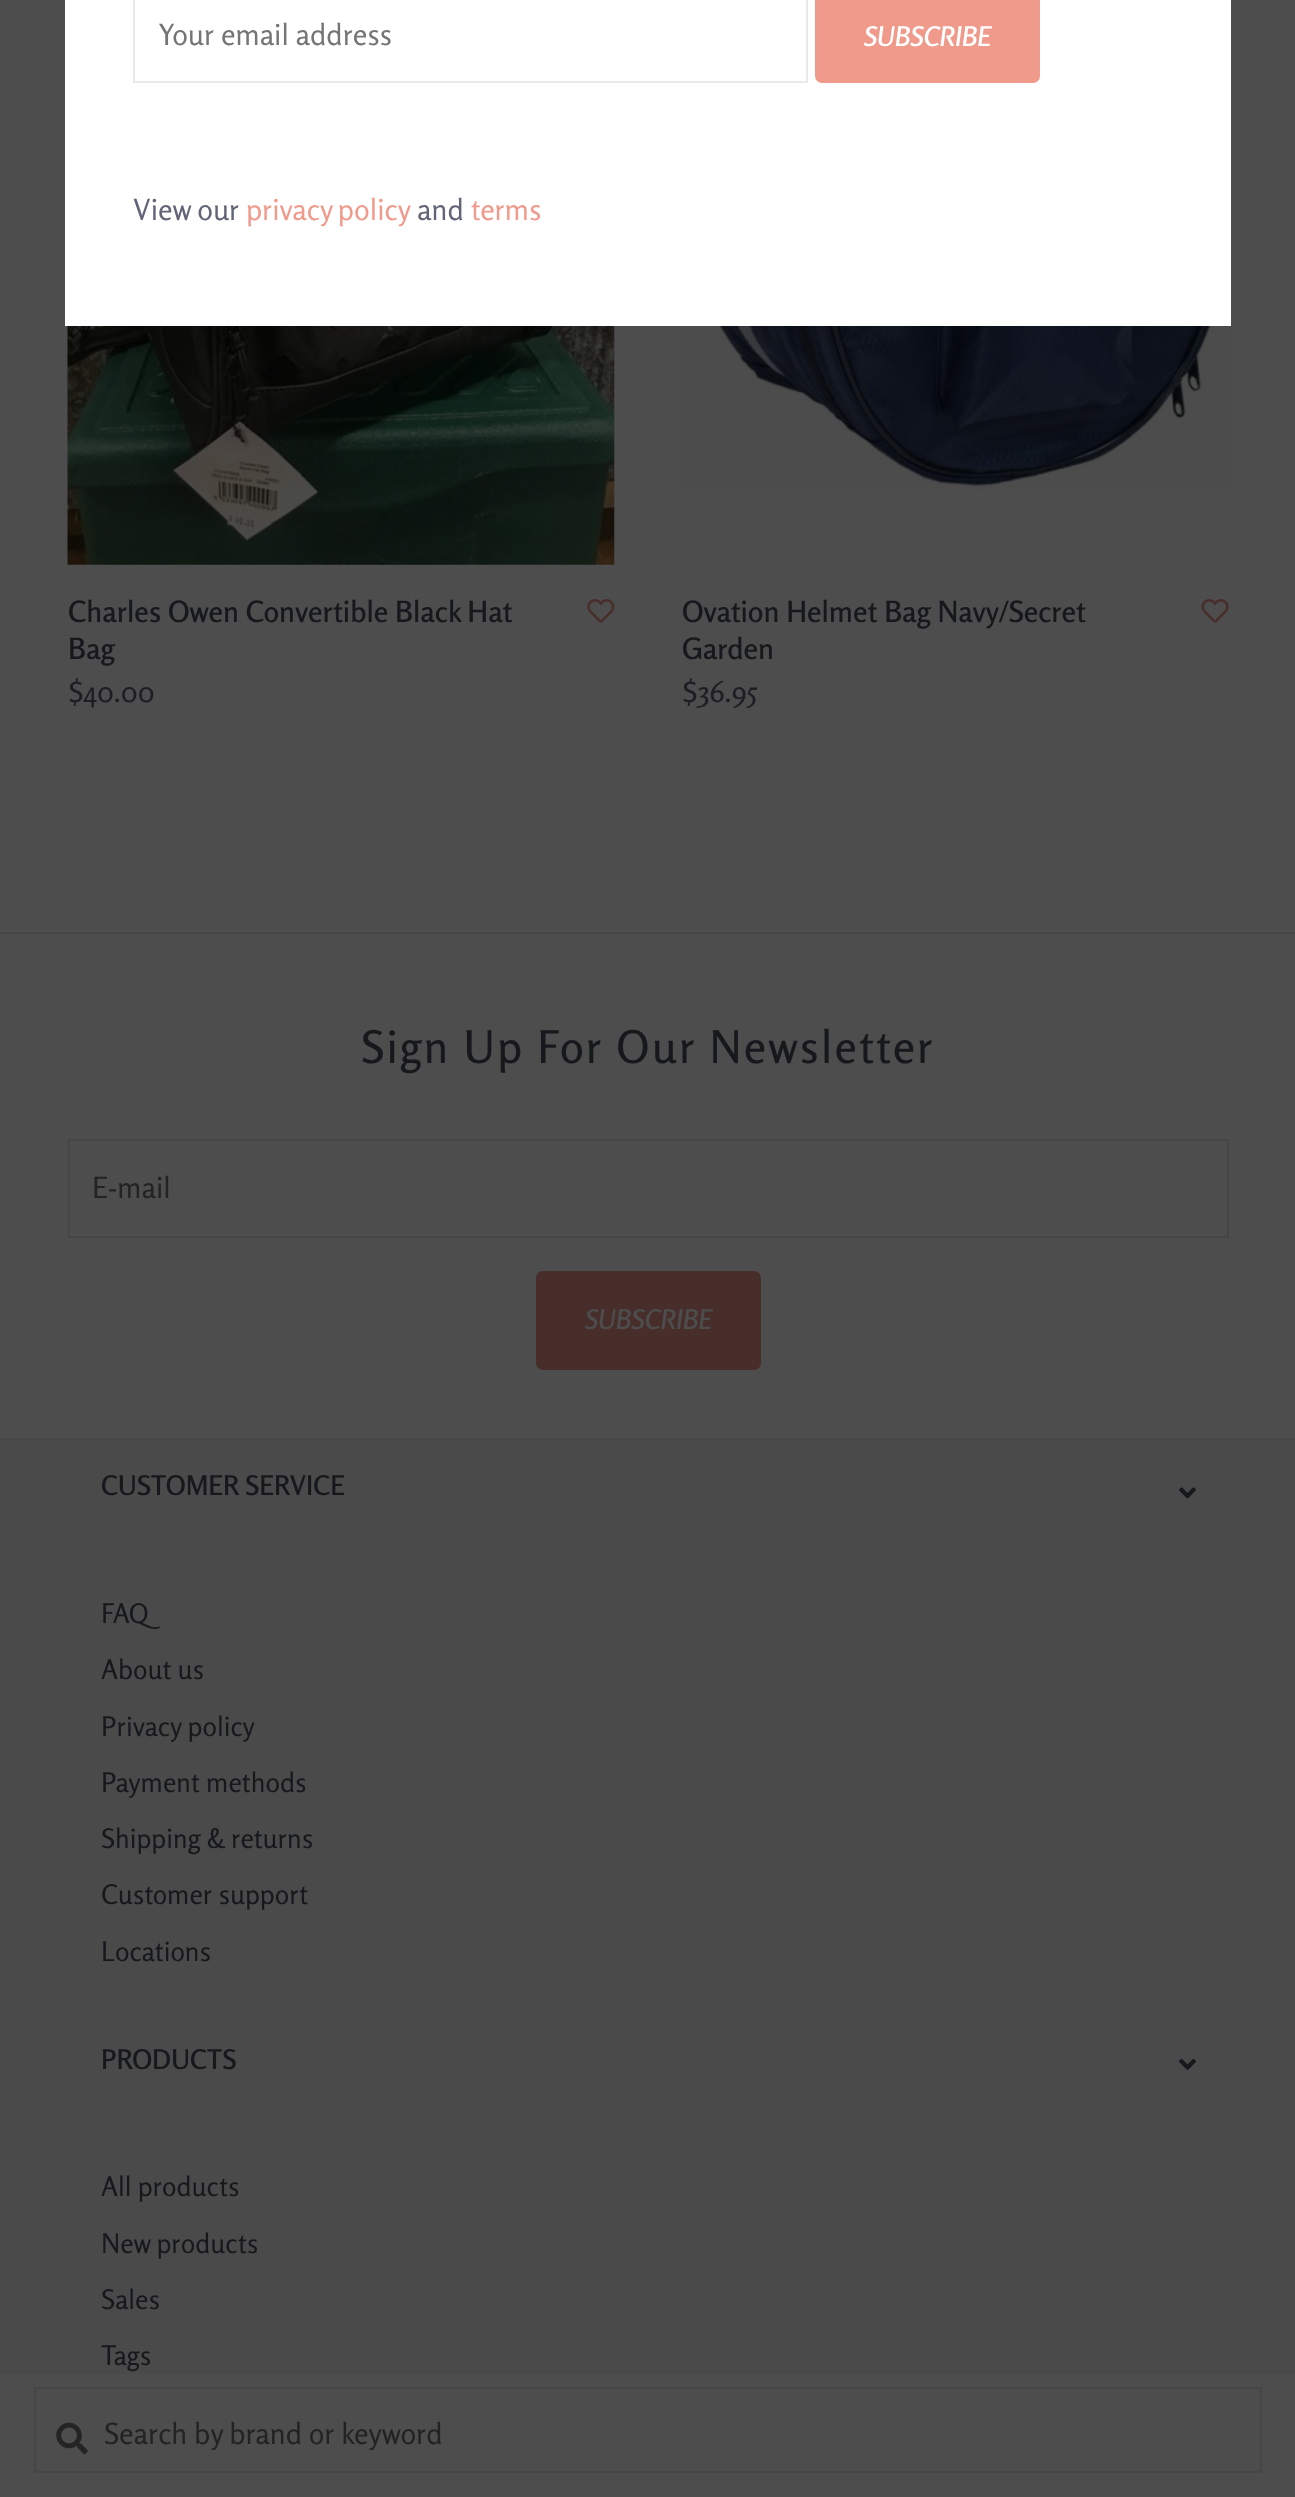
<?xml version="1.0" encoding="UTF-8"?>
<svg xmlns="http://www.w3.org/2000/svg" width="1295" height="2497">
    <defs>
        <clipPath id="clip1"><rect x="104" y="2414" width="1134" height="36"/></clipPath>
    </defs>
    <rect width="100%" height="100%" fill="#4D4D4D"/>
    <rect x="65" y="0" width="1166" height="326" fill="#FFFFFF"/>
    <rect x="134" y="-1" width="673" height="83" fill="none" stroke="#EAEAEA" stroke-width="2"/>
    <text x="158" y="45" font-family="Rosario" font-size="29.25" fill="#757575">Your email address</text>
    <rect x="815" y="-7" width="225" height="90" rx="7" fill="#F09A8B"/>
    <text x="864" y="46" font-family="Rosario" font-size="27" font-weight="600" font-style="italic" fill="#FFFFFF">SUBSCRIBE</text>
    <text x="133" y="220" font-family="Rosario" font-size="29.25" fill="#626577">View our</text>
    <text x="246" y="220" word-spacing="-1" font-family="Rosario" font-size="29.25" fill="#F09A8B">privacy policy</text>
    <text x="417" y="220" font-family="Rosario" font-size="29.25" fill="#626577">and</text>
    <text x="471" y="220" font-family="Rosario" font-size="29.25" fill="#F09A8B">terms</text>
    <image x="67" y="326" width="548" height="239" href="img_01.png"/>
    <text font-family="Rosario" font-size="29.25" font-weight="600" fill="#16181C">
        <tspan x="68" y="622">Charles Owen Convertible Black Hat</tspan>
        <tspan x="68" y="659">Bag</tspan>
    </text>
    <image x="587" y="599" width="28" height="24" href="img_02.png"/>
    <text x="68" y="702" font-family="Rosario" font-size="29.25" fill="#1D1E24">$40.00</text>
    <image x="681" y="326" width="548" height="165" href="img_03.png"/>
    <text font-family="Rosario" font-size="29.25" font-weight="600" fill="#16181C">
        <tspan x="682" y="622">Ovation Helmet Bag Navy/Secret</tspan>
        <tspan x="682" y="659">Garden</tspan>
    </text>
    <image x="1201" y="599" width="28" height="24" href="img_04.png"/>
    <text x="682" y="702" font-family="Rosario" font-size="29.25" fill="#1D1E24">$36.95</text>
    <rect x="0" y="932" width="1295" height="2" fill="#464646"/>
    <rect x="0" y="1438" width="1295" height="2" fill="#464646"/>
    <text x="361" y="1063" font-family="Rosario" font-size="45" font-weight="500" letter-spacing="2.25" fill="#16181C">Sign Up For Our Newsletter</text>
    <rect x="69" y="1140" width="1159" height="97" fill="none" stroke="#464646" stroke-width="2"/>
    <text x="92" y="1198" font-family="Rosario" font-size="29.25" fill="#232323">E-mail</text>
    <rect x="536" y="1271" width="225" height="99" rx="7" fill="#482E2A"/>
    <text x="585" y="1329" font-family="Rosario" font-size="27" font-weight="600" font-style="italic" fill="#4D4D4D">SUBSCRIBE</text>
    <rect x="0" y="1440" width="1295" height="934" fill="#4A4A4A"/>
    <text x="101" y="1495" font-family="Rosario" font-size="27" font-weight="600" fill="#16181C">CUSTOMER SERVICE</text>
    <image x="1179" y="1487" width="17" height="12" href="img_05.png"/>
    <text x="101" y="1623" font-family="Rosario" font-size="27" fill="#16181C">FAQ</text>
    <text x="101" y="1679" font-family="Rosario" font-size="27" fill="#16181C">About us</text>
    <text x="101" y="1736" font-family="Rosario" font-size="27" fill="#16181C">Privacy policy</text>
    <text x="101" y="1792" font-family="Rosario" font-size="27" fill="#16181C">Payment methods</text>
    <text x="101" y="1848" font-family="Rosario" font-size="27" fill="#16181C">Shipping &amp; returns</text>
    <text x="101" y="1904" font-family="Rosario" font-size="27" fill="#16181C">Customer support</text>
    <text x="101" y="1961" font-family="Rosario" font-size="27" fill="#16181C">Locations</text>
    <text x="101" y="2069" font-family="Rosario" font-size="27" font-weight="600" fill="#16181C">PRODUCTS</text>
    <image x="1179" y="2059" width="17" height="11" href="img_06.png"/>
    <text x="101" y="2196" font-family="Rosario" font-size="27" fill="#16181C">All products</text>
    <text x="101" y="2253" font-family="Rosario" font-size="27" fill="#16181C">New products</text>
    <text x="101" y="2309" font-family="Rosario" font-size="27" fill="#16181C">Sales</text>
    <text x="101" y="2365" font-family="Rosario" font-size="27" fill="#16181C">Tags</text>
    <rect x="35" y="2388" width="1226" height="84" fill="none" stroke="#464646" stroke-width="2"/>
    <image x="56" y="2422" width="32" height="33" href="img_07.png"/>
    <g clip-path="url(#clip1)">
        <text x="104" y="2444" font-family="Rosario" font-size="29.25" fill="#232323">Search by brand or keyword</text>
    </g>
</svg>
